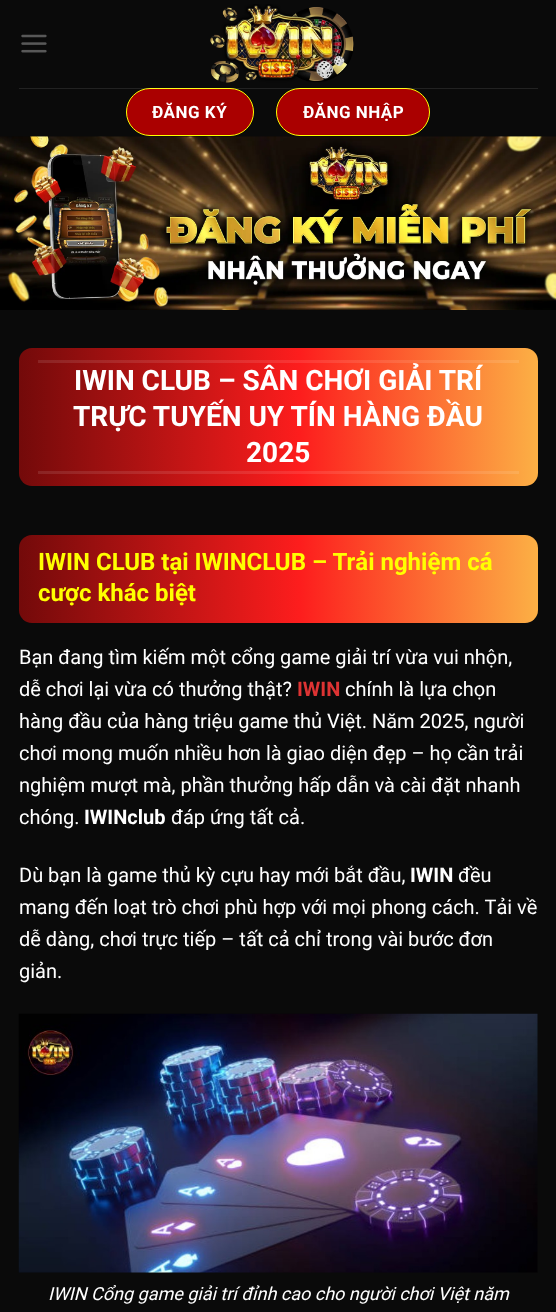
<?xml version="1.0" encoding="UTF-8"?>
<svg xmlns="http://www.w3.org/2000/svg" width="556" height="1312">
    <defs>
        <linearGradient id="g1" gradientUnits="userSpaceOnUse" x1="19" y1="417" x2="538" y2="417"><stop offset="0" stop-color="#730A0A"/><stop offset="0.54" stop-color="#FD1D1D"/><stop offset="1" stop-color="#FCB045"/></linearGradient>
        <linearGradient id="g2" gradientUnits="userSpaceOnUse" x1="19" y1="417" x2="538" y2="417"><stop offset="0" stop-color="#812323"/><stop offset="0.54" stop-color="#FD3434"/><stop offset="1" stop-color="#FCB858"/></linearGradient>
        <linearGradient id="g3" gradientUnits="userSpaceOnUse" x1="19" y1="579" x2="538" y2="579"><stop offset="0" stop-color="#730A0A"/><stop offset="0.54" stop-color="#FD1D1D"/><stop offset="1" stop-color="#FCB045"/></linearGradient>
    </defs>
    <rect width="100%" height="100%" fill="#0A0A0A"/>
    <image x="21" y="34" width="26" height="19" href="img_01.png"/>
    <image x="210" y="4" width="144" height="79" href="img_02.png"/>
    <rect x="126.5" y="88.5" width="127" height="47" rx="23.5" fill="#AA0000" stroke="#FFFF00"/>
    <rect x="276.5" y="88.5" width="153" height="47" rx="23.5" fill="#AA0000" stroke="#FFFF00"/>
    <rect x="19" y="88" width="519" height="1" fill="#FFFFFF" fill-opacity="0.1"/>
    <text x="152" y="118" font-family="Roboto" font-size="17" font-weight="700" letter-spacing="0.5" fill="#FFFFFF">ĐĂNG KÝ</text>
    <text x="303" y="118" font-family="Roboto" font-size="17" font-weight="700" letter-spacing="0.5" fill="#FFFFFF">ĐĂNG NHẬP</text>
    <image x="0" y="136" width="556" height="174" href="img_03.png"/>
    <rect x="19" y="348" width="519" height="138" rx="13" fill="url(#g1)"/>
    <rect x="38" y="471" width="481" height="3" fill="url(#g2)"/>
    <rect x="38" y="360" width="481" height="3" fill="url(#g2)"/>
    <text x="74" y="390" font-family="Roboto" font-size="28" font-weight="700" fill="#FFFFFF">IWIN CLUB – SÂN CHƠI GIẢI TRÍ</text>
    <text x="73" y="426" font-family="Roboto" font-size="28" font-weight="700" fill="#FFFFFF">TRỰC TUYẾN UY TÍN HÀNG ĐẦU</text>
    <text x="246" y="462" font-family="Roboto" font-size="28" font-weight="700" fill="#FFFFFF">2025</text>
    <rect x="19" y="535" width="519" height="88" rx="13" fill="url(#g3)"/>
    <text font-family="Roboto" font-size="24" font-weight="700" fill="#FFFF00">
        <tspan x="38" y="570">IWIN CLUB tại IWINCLUB – Trải nghiệm cá</tspan>
        <tspan x="38" y="601">cược khác biệt</tspan>
    </text>
    <text font-family="Roboto" font-size="20" fill="#FFFFFF">
        <tspan x="19" y="664">Bạn đang tìm kiếm một cổng game giải trí vừa vui nhộn,</tspan>
        <tspan x="19" y="696">dễ chơi lại vừa có thưởng thật?</tspan>
    </text>
    <text x="297" y="696" font-family="Roboto" font-size="20" font-weight="700" fill="#DD3333">IWIN</text>
    <text x="345" y="696" font-family="Roboto" font-size="20" fill="#FFFFFF">chính là lựa chọn</text>
    <text font-family="Roboto" font-size="20" fill="#FFFFFF">
        <tspan x="19" y="728">hàng đầu của hàng triệu game thủ Việt. Năm 2025, người</tspan>
        <tspan x="19" y="760">chơi mong muốn nhiều hơn là giao diện đẹp – họ cần trải</tspan>
        <tspan x="19" y="792">nghiệm mượt mà, phần thưởng hấp dẫn và cài đặt nhanh</tspan>
        <tspan x="19" y="824">chóng.</tspan>
    </text>
    <text x="84" y="824" font-family="Roboto" font-size="20" font-weight="700" fill="#FFFFFF">IWINclub</text>
    <text x="171" y="824" font-family="Roboto" font-size="20" fill="#FFFFFF">đáp ứng tất cả.</text>
    <text x="19" y="882" font-family="Roboto" font-size="20" fill="#FFFFFF">Dù bạn là game thủ kỳ cựu hay mới bắt đầu,</text>
    <text x="410" y="882" font-family="Roboto" font-size="20" font-weight="700" fill="#FFFFFF">IWIN</text>
    <text x="458" y="882" font-family="Roboto" font-size="20" fill="#FFFFFF">đều</text>
    <text font-family="Roboto" font-size="20" fill="#FFFFFF">
        <tspan x="19" y="914">mang đến loạt trò chơi phù hợp với mọi phong cách. Tải về</tspan>
        <tspan x="19" y="946">dễ dàng, chơi trực tiếp – tất cả chỉ trong vài bước đơn</tspan>
        <tspan x="19" y="978">giản.</tspan>
    </text>
    <image x="18" y="1013" width="520" height="260" href="img_04.png"/>
    <text x="48" y="1300" font-family="Roboto" font-size="18" font-style="italic" fill="#FFFFFF">IWIN Cổng game giải trí đỉnh cao cho người chơi Việt năm</text>
</svg>
